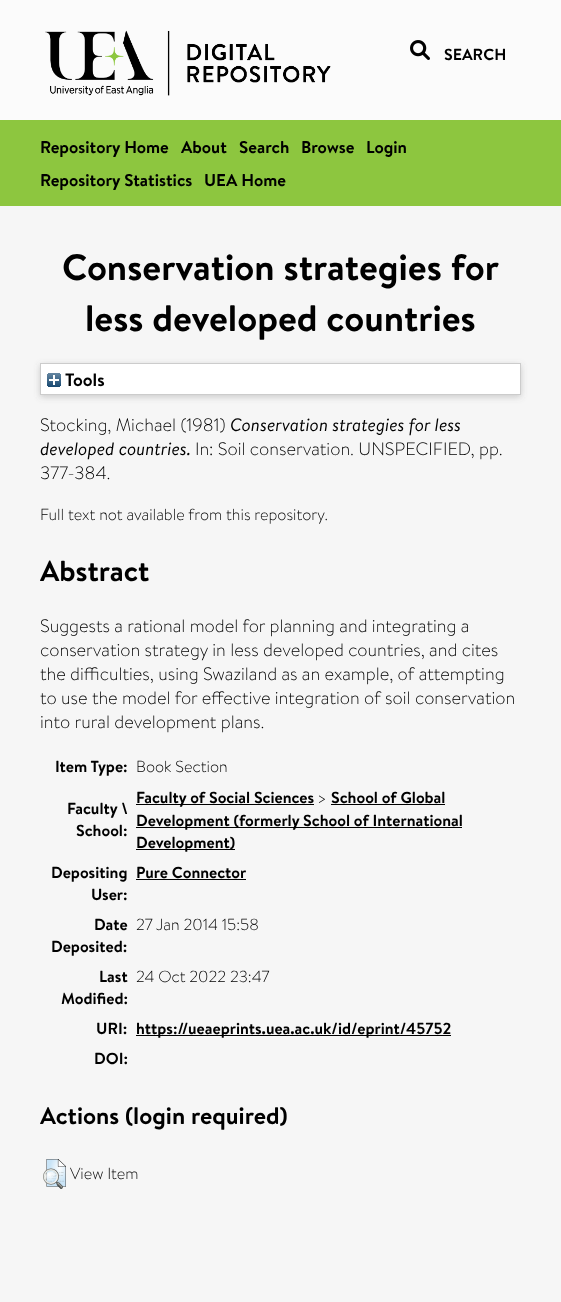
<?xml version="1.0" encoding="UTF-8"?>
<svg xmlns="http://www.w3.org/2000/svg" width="561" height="1302">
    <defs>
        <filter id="blur1" x="-50%" y="-200%" width="200%" height="500%"><feGaussianBlur stdDeviation="3"/></filter>
    </defs>
    <rect width="100%" height="100%" fill="#F6F6F6"/>
    <rect x="0" y="0" width="561" height="120" fill="#FBFBFB"/>
    <image x="45" y="30" width="286" height="66" href="img_01.png"/>
    <image x="410" y="40" width="20" height="20" href="img_02.png"/>
    <text x="444" y="60" font-family="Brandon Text" font-size="16" font-weight="700" fill="#000000">SEARCH</text>
    <rect x="0" y="120" width="561" height="86" fill="#8DC63F"/>
    <text x="40" y="153" font-family="Brandon Text" font-size="17" font-weight="700" fill="#000000">Repository Home</text>
    <text x="181" y="153" font-family="Brandon Text" font-size="17" font-weight="700" fill="#000000">About</text>
    <text x="239" y="153" font-family="Brandon Text" font-size="17" font-weight="700" fill="#000000">Search</text>
    <text x="301" y="153" font-family="Brandon Text" font-size="17" font-weight="700" fill="#000000">Browse</text>
    <text x="366" y="153" font-family="Brandon Text" font-size="17" font-weight="700" fill="#000000">Login</text>
    <text x="40" y="186" font-family="Brandon Text" font-size="17" font-weight="700" fill="#000000">Repository Statistics</text>
    <text x="204" y="186" font-family="Brandon Text" font-size="17" font-weight="700" fill="#000000">UEA Home</text>
    <text x="62" y="280" font-family="Brandon Text" font-size="36.75" font-weight="700" fill="#000000">Conservation strategies for</text>
    <text x="85" y="331" font-family="Brandon Text" font-size="36.75" font-weight="700" fill="#000000">less developed countries</text>
    <rect x="40" y="365" width="481" height="32" fill="#646464" fill-opacity="0.3" filter="url(#blur1)"/>
    <rect x="40.5" y="363.5" width="480" height="31" fill="#FFFFFF" stroke="#CCCCCC"/>
    <image x="47" y="373" width="14" height="14" href="img_03.png"/>
    <text x="65" y="386" font-family="Brandon Text" font-size="18" font-weight="700" fill="#000000">Tools</text>
    <text x="40" y="431" font-family="Brandon Text" font-size="18" font-weight="300" fill="#000000">Stocking, Michael (1981)</text>
    <text x="230" y="431" font-family="Brandon Text" font-size="18" font-style="italic" fill="#000000">Conservation strategies for less</text>
    <text x="40" y="455" font-family="Brandon Text" font-size="18" font-style="italic" fill="#000000">developed countries.</text>
    <text x="195" y="455" font-family="Brandon Text" font-size="18" font-weight="300" fill="#000000">In: Soil conservation. UNSPECIFIED, pp.</text>
    <text x="40" y="479" font-family="Brandon Text" font-size="18" font-weight="300" fill="#000000">377-384.</text>
    <text x="40" y="520" font-family="Brandon Text" font-size="16" font-weight="300" fill="#000000">Full text not available from this repository.</text>
    <text x="40" y="581" font-family="Brandon Text" font-size="29" font-weight="700" fill="#000000">Abstract</text>
    <text font-family="Brandon Text" font-size="18" font-weight="300" fill="#000000">
        <tspan x="40" y="632">Suggests a rational model for planning and integrating a</tspan>
        <tspan x="40" y="656">conservation strategy in less developed countries, and cites</tspan>
        <tspan x="40" y="680">the difficulties, using Swaziland as an example, of attempting</tspan>
        <tspan x="40" y="704">to use the model for effective integration of soil conservation</tspan>
        <tspan x="40" y="728">into rural development plans.</tspan>
    </text>
    <text x="55" y="772" font-family="Brandon Text" font-size="16" font-weight="700" fill="#000000">Item Type:</text>
    <text x="136" y="772" font-family="Brandon Text" font-size="16" font-weight="300" fill="#000000">Book Section</text>
    <text x="67" y="814" font-family="Brandon Text" font-size="16" font-weight="700" fill="#000000">Faculty \</text>
    <text x="76" y="836" font-family="Brandon Text" font-size="16" font-weight="700" fill="#000000">School:</text>
    <rect x="136" y="804" width="178" height="1" fill="#000000"/>
    <text x="136" y="803" font-family="Brandon Text" font-size="16" font-weight="700" fill="#000000">Faculty of Social Sciences</text>
    <text x="317" y="803" font-family="Brandon Text" font-size="16" font-weight="300" fill="#000000">&gt;</text>
    <text x="331" y="803" font-family="Brandon Text" font-size="16" font-weight="700" fill="#000000">School of Global</text>
    <rect x="331" y="804" width="114" height="1" fill="#000000"/>
    <rect x="136" y="827" width="326" height="1" fill="#000000"/>
    <text x="136" y="826" font-family="Brandon Text" font-size="16" font-weight="700" fill="#000000">Development (formerly School of International</text>
    <rect x="136" y="849" width="99" height="1" fill="#000000"/>
    <text x="136" y="848" font-family="Brandon Text" font-size="16" font-weight="700" fill="#000000">Development)</text>
    <text x="51" y="878" font-family="Brandon Text" font-size="16" font-weight="700" fill="#000000">Depositing</text>
    <text x="91" y="900" font-family="Brandon Text" font-size="16" font-weight="700" fill="#000000">User:</text>
    <text x="136" y="878" font-family="Brandon Text" font-size="16" font-weight="700" fill="#000000">Pure Connector</text>
    <rect x="136" y="879" width="110" height="1" fill="#000000"/>
    <text x="94" y="930" font-family="Brandon Text" font-size="16" font-weight="700" fill="#000000">Date</text>
    <text x="51" y="952" font-family="Brandon Text" font-size="16" font-weight="700" fill="#000000">Deposited:</text>
    <text x="136" y="930" font-family="Brandon Text" font-size="16" font-weight="300" fill="#000000">27 Jan 2014 15:58</text>
    <text x="99" y="982" font-family="Brandon Text" font-size="16" font-weight="700" fill="#000000">Last</text>
    <text x="61" y="1004" font-family="Brandon Text" font-size="16" font-weight="700" fill="#000000">Modified:</text>
    <text x="136" y="982" font-family="Brandon Text" font-size="16" font-weight="300" fill="#000000">24 Oct 2022 23:47</text>
    <text x="96" y="1034" font-family="Brandon Text" font-size="16" font-weight="700" fill="#000000">URI:</text>
    <rect x="136" y="1035" width="315" height="1" fill="#000000"/>
    <text x="136" y="1034" font-family="Brandon Text" font-size="16" font-weight="700" fill="#000000">https://ueaeprints.uea.ac.uk/id/eprint/45752</text>
    <text x="94" y="1064" font-family="Brandon Text" font-size="16" font-weight="700" fill="#000000">DOI:</text>
    <text x="40" y="1124" font-family="Brandon Text" font-size="24" font-weight="700" fill="#000000">Actions (login required)</text>
    <image x="43" y="1159" width="23" height="30" href="img_04.png"/>
    <text x="70" y="1179" font-family="Brandon Text" font-size="16" font-weight="300" fill="#000000">View Item</text>
</svg>
